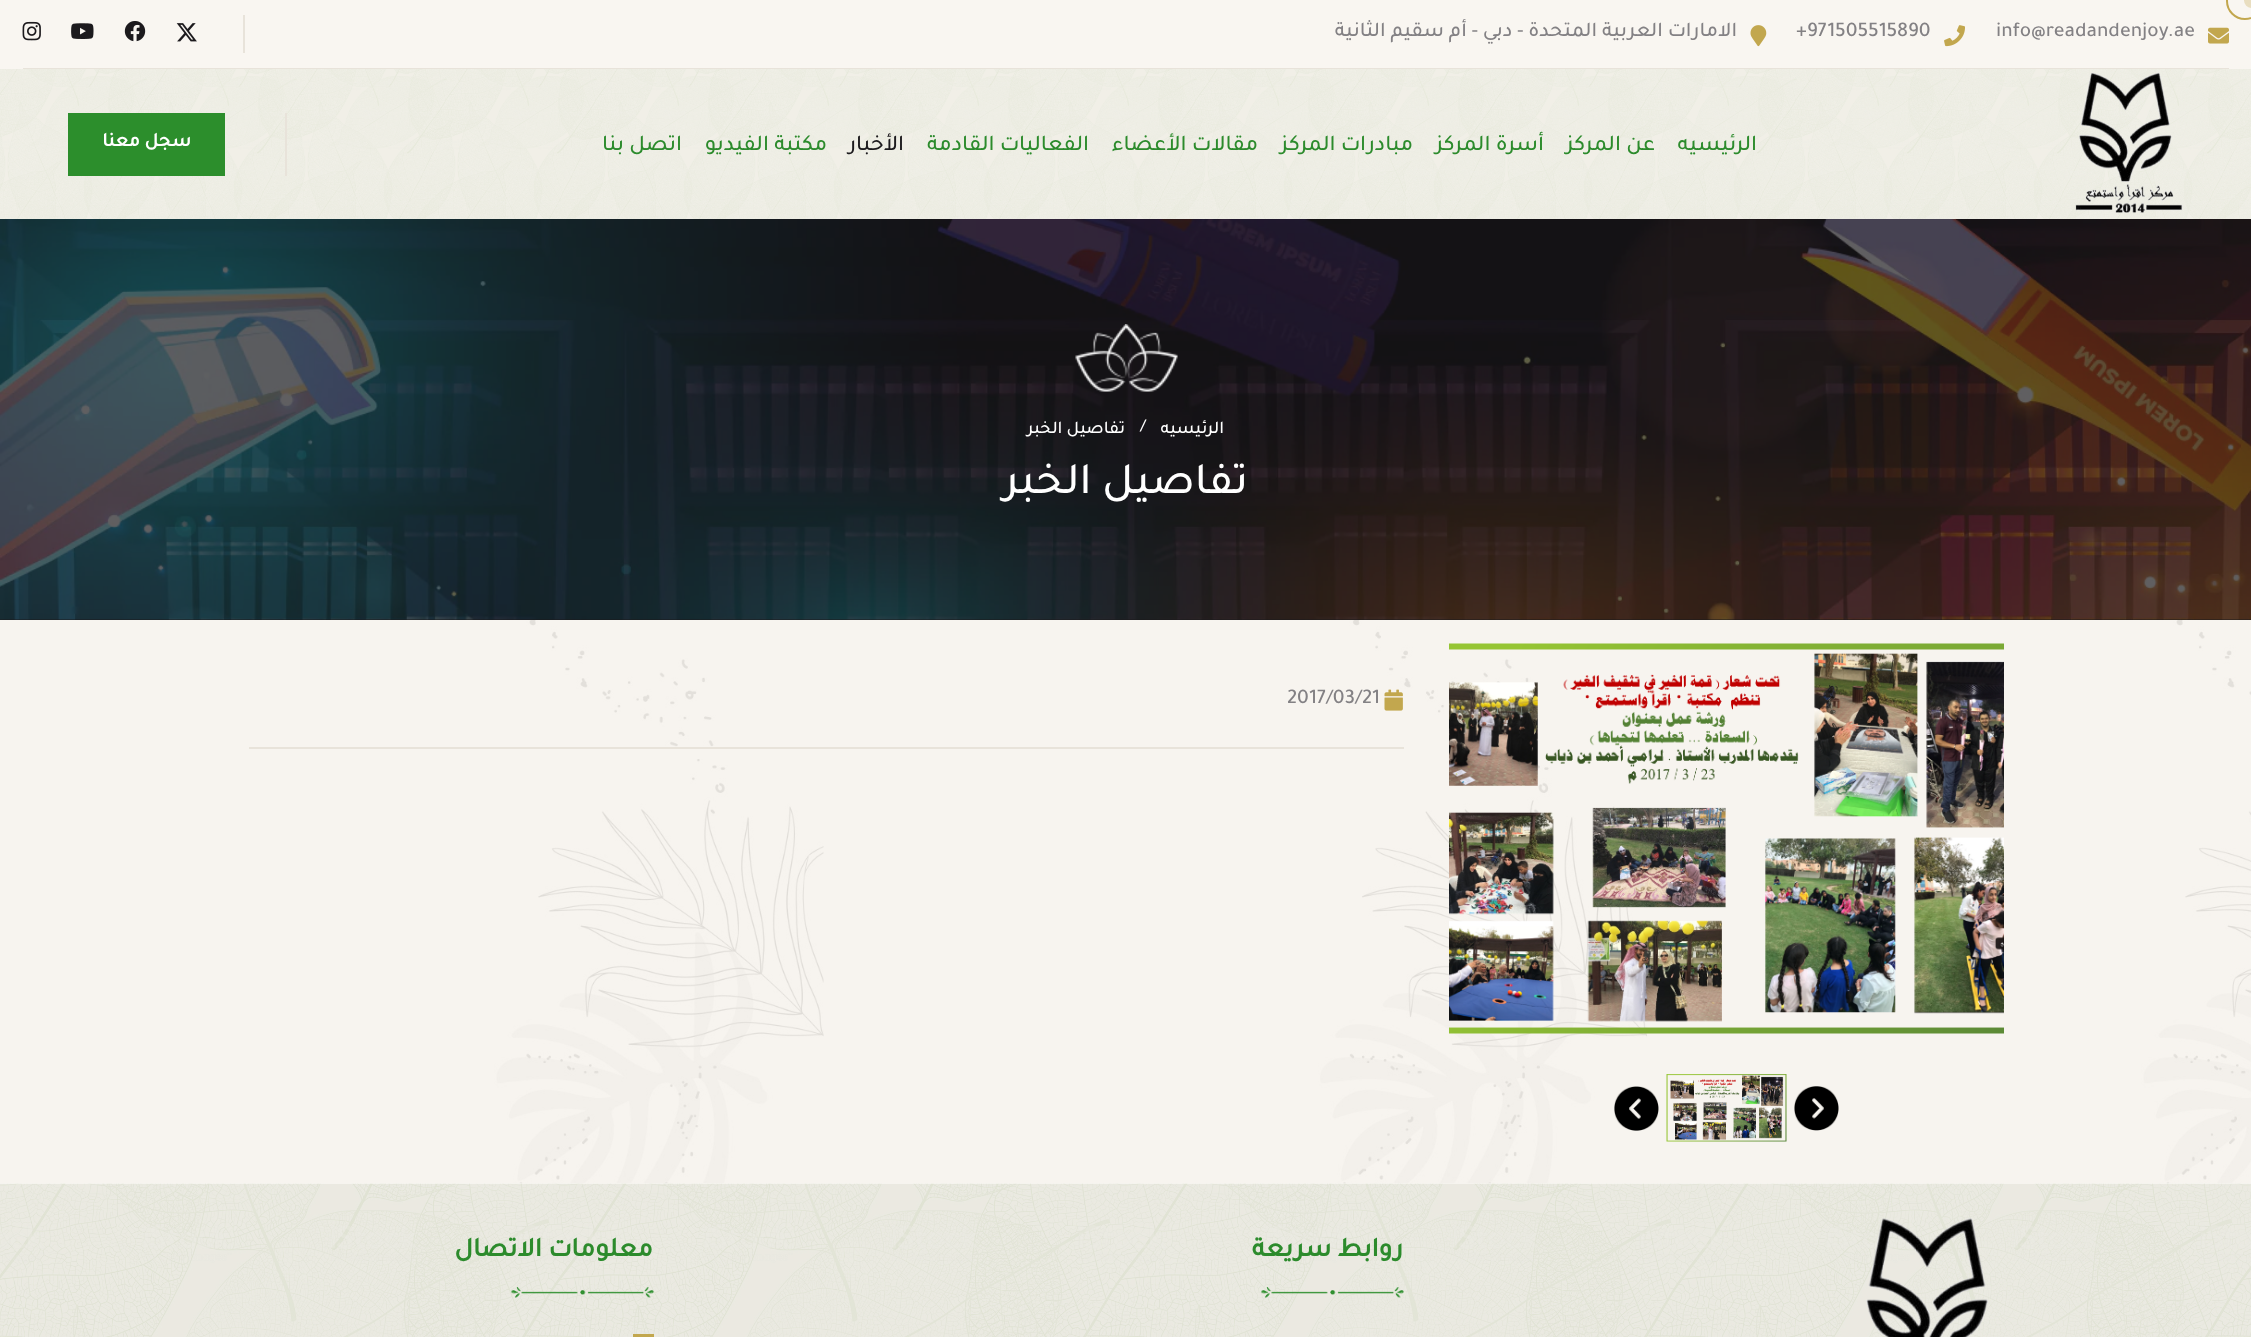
<?xml version="1.0" encoding="UTF-8"?>
<svg xmlns="http://www.w3.org/2000/svg" width="2251" height="1337">
    <defs>
        <clipPath id="clip1"><rect x="68" y="113" width="157" height="63"/></clipPath>
    </defs>
    <rect width="100%" height="100%" fill="#FFFFFF"/>
    <rect x="0" y="0" width="2251" height="69" fill="#F9F6F1"/>
    <circle cx="2245" cy="1" r="18" fill="none" stroke="#C2A74E" stroke-width="2"/>
    <circle cx="2251.5" cy="0.5" r="7.5" fill="#E9DEC0"/>
    <rect x="23" y="68" width="2206" height="1" fill="#E8E3DA"/>
    <image x="2208" y="27" width="21" height="17" href="img_01.png"/>
    <text x="1996" y="36" font-family="Tajawal" font-size="21" font-weight="500" fill="#838184">info@readandenjoy.ae</text>
    <image x="1944" y="25" width="21" height="22" href="img_02.png"/>
    <text x="1796" y="36" font-family="Tajawal" font-size="21" font-weight="500" fill="#838184">+971505515890</text>
    <image x="1750" y="25" width="17" height="22" href="img_03.png"/>
    <text x="1737" y="36" font-family="Tajawal" font-size="21" font-weight="500" direction="rtl" fill="#838184">الامارات العربية المتحدة - دبي - أم سقيم الثانية</text>
    <rect x="243" y="15" width="2" height="38" fill="#E8E3DA"/>
    <image x="176" y="23" width="21" height="19" href="img_04.png"/>
    <image x="124" y="21" width="22" height="21" href="img_05.png"/>
    <image x="71" y="23" width="23" height="16" href="img_06.png"/>
    <image x="22" y="21" width="19" height="20" href="img_07.png"/>
    <image x="0" y="69" width="2251" height="150" href="img_08.png"/>
    <image x="2075" y="72" width="108" height="141" href="img_09.png"/>
    <text x="1757" y="150" font-family="Tajawal" font-size="22.5" font-weight="500" direction="rtl" fill="#2C8B2C">الرئيسيه</text>
    <text x="1655" y="150" font-family="Tajawal" font-size="22.5" font-weight="500" direction="rtl" fill="#2C8B2C">عن المركز</text>
    <text x="1544" y="150" font-family="Tajawal" font-size="22.5" font-weight="500" direction="rtl" fill="#2C8B2C">أسرة المركز</text>
    <text x="1413" y="150" font-family="Tajawal" font-size="22.5" font-weight="500" direction="rtl" fill="#2C8B2C">مبادرات المركز</text>
    <text x="1258" y="150" font-family="Tajawal" font-size="22.5" font-weight="500" direction="rtl" fill="#2C8B2C">مقالات الأعضاء</text>
    <text x="1089" y="150" font-family="Tajawal" font-size="22.5" font-weight="500" direction="rtl" fill="#2C8B2C">الفعاليات القادمة</text>
    <text x="904" y="150" font-family="Tajawal" font-size="22.5" font-weight="500" direction="rtl" fill="#1C1A1D">الأخبار</text>
    <text x="827" y="150" font-family="Tajawal" font-size="22.5" font-weight="500" direction="rtl" fill="#2C8B2C">مكتبة الفيديو</text>
    <text x="682" y="150" font-family="Tajawal" font-size="22.5" font-weight="500" direction="rtl" fill="#2C8B2C">اتصل بنا</text>
    <rect x="285" y="113" width="2" height="63" fill="#E8E3DA"/>
    <g clip-path="url(#clip1)">
        <path d="M 147 81 C 212 81 265 102 265 128 V 176 H 28 V 128 C 28 102 81 81 147 81 Z" fill="#2C8E2C"/>
    </g>
    <text x="191" y="146" font-family="Tajawal" font-size="19.5" font-weight="700" direction="rtl" fill="#FFFFFF">سجل معنا</text>
    <rect x="0" y="219" width="2251" height="401" fill="#1C1A1D"/>
    <image x="0" y="219" width="2251" height="401" href="img_10.png"/>
    <image x="1075" y="324" width="103" height="68" href="img_11.png"/>
    <text x="1224" y="433" font-family="Tajawal" font-size="18" font-weight="500" direction="rtl" fill="#FFFFFF">الرئيسيه</text>
    <text x="1140" y="431" font-family="Tajawal" font-size="18" font-weight="500" fill="#FFFFFF">/</text>
    <text x="1125" y="433" font-family="Tajawal" font-size="18" font-weight="500" direction="rtl" fill="#FFFFFF">تفاصيل الخبر</text>
    <text x="1248" y="493" font-family="Tajawal" font-size="45" font-weight="500" direction="rtl" fill="#FFFFFF">تفاصيل الخبر</text>
    <image x="0" y="620" width="2251" height="564" href="img_12.png"/>
    <image x="1449" y="643" width="555" height="391" href="img_13.png"/>
    <image x="1794" y="1086" width="45" height="45" href="img_14.png"/>
    <image x="1666" y="1074" width="121" height="68" href="img_15.png"/>
    <image x="1614" y="1086" width="45" height="45" href="img_16.png"/>
    <rect x="249" y="747" width="1155" height="2" fill="#E8E3DA"/>
    <image x="1384" y="689" width="19" height="22" href="img_17.png"/>
    <text x="1287" y="703" font-family="Tajawal" font-size="21" font-weight="500" fill="#838184">2017/03/21</text>
    <image x="0" y="1183" width="2251" height="154" href="img_18.png"/>
    <image x="1866" y="1218" width="122" height="119" href="img_19.png"/>
    <text x="1403" y="1256" font-family="Tajawal" font-size="27" font-weight="700" direction="rtl" fill="#2C8B2C">روابط سريعة</text>
    <image x="1261" y="1287" width="143" height="11" href="img_20.png"/>
    <text x="653" y="1256" font-family="Tajawal" font-size="27" font-weight="700" direction="rtl" fill="#2C8B2C">معلومات الاتصال</text>
    <image x="511" y="1287" width="143" height="11" href="img_21.png"/>
    <rect x="633" y="1334" width="21" height="3" fill="#C2A74E"/>
</svg>
